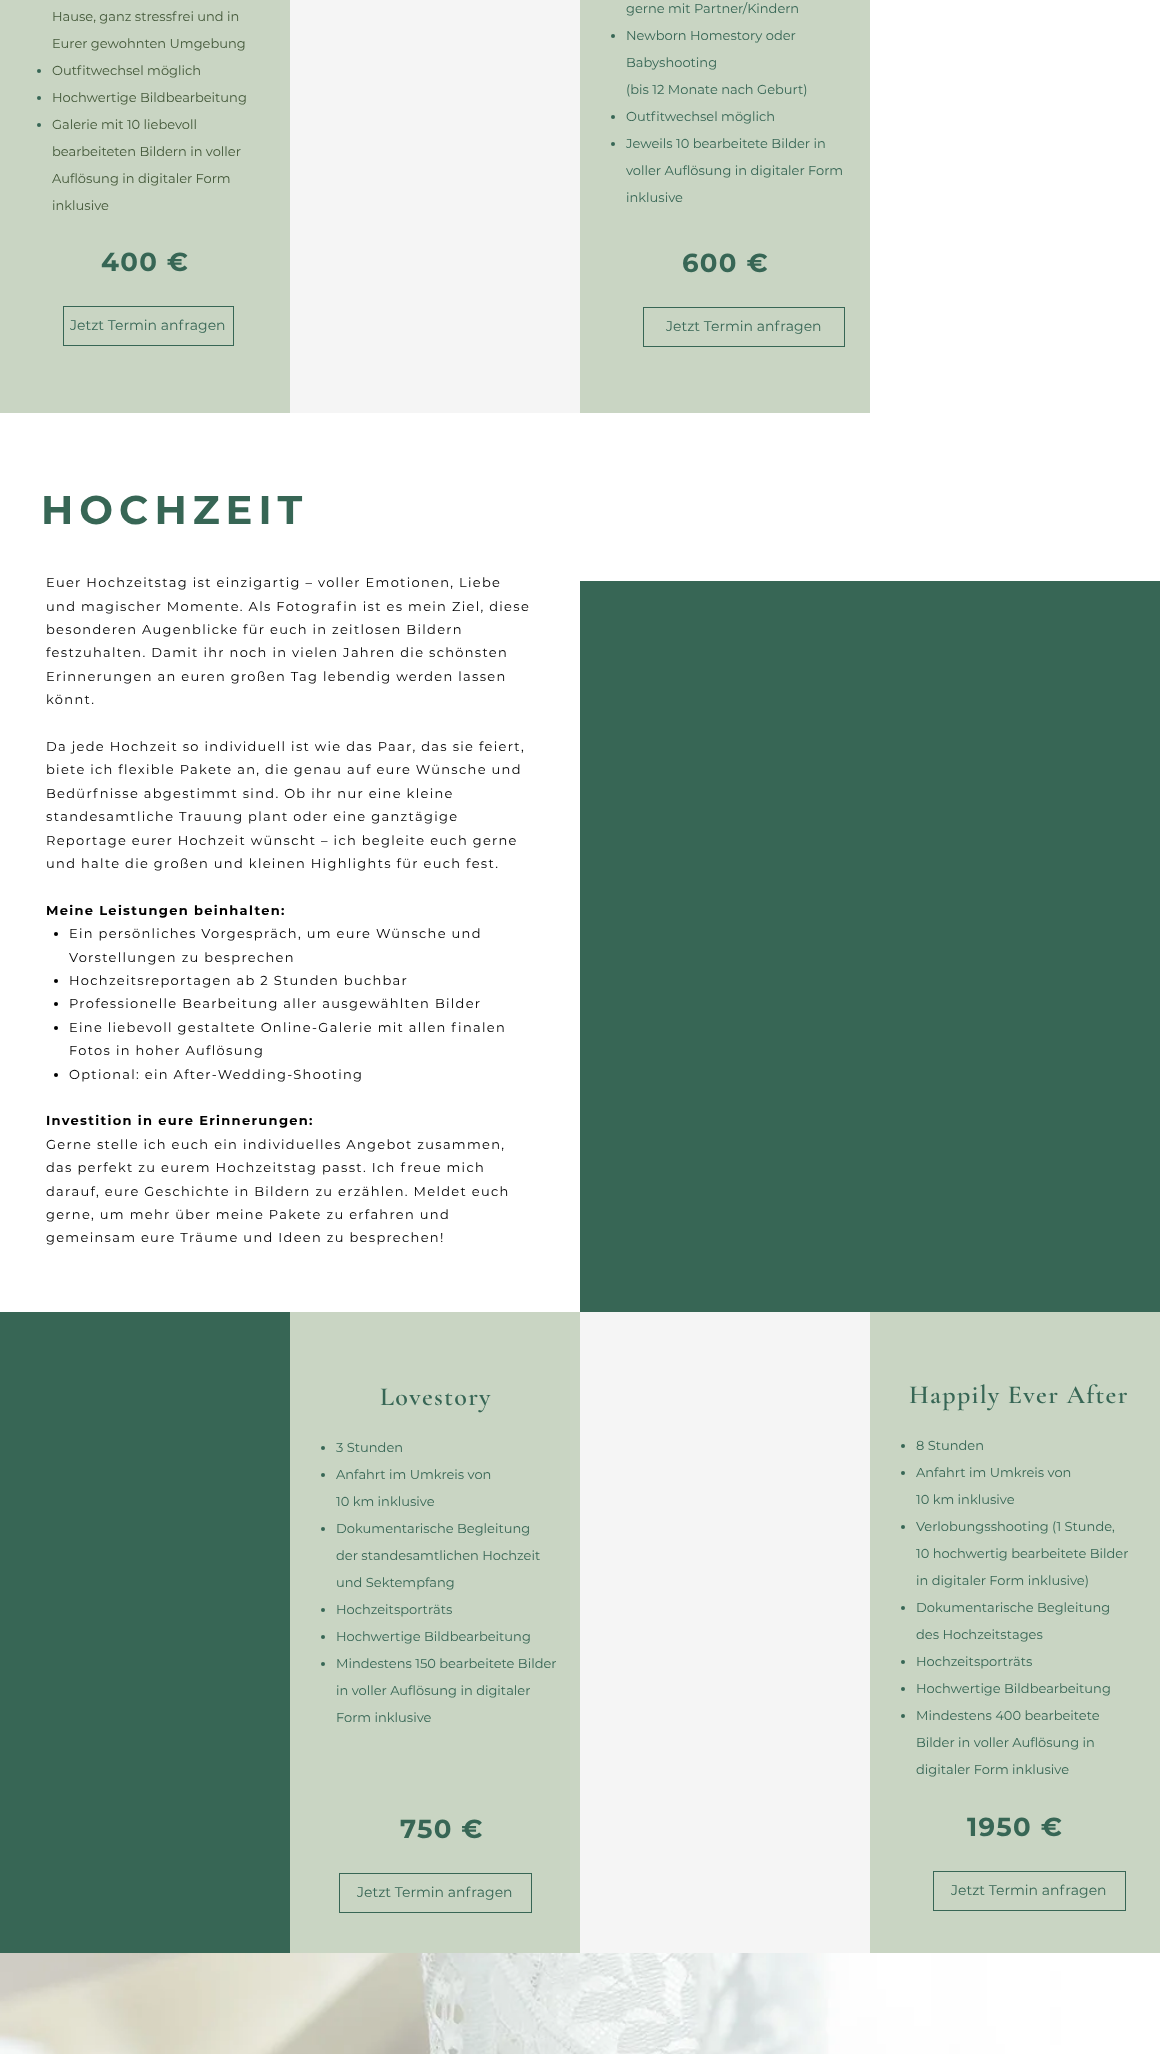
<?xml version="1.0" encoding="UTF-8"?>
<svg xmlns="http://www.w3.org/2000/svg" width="1160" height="2054">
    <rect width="100%" height="100%" fill="#376655"/>
    <rect x="0" y="0" width="290" height="413" fill="#C9D5C3"/>
    <text x="52" y="21" font-family="Montserrat" font-size="13" fill="#44593A">Hause, ganz stressfrei und in</text>
    <text x="52" y="48" font-family="Montserrat" font-size="13" fill="#44593A">Eurer gewohnten Umgebung</text>
    <circle cx="39" cy="71" r="2" fill="#376655"/>
    <text x="52" y="75" font-family="Montserrat" font-size="13" fill="#44593A">Outfitwechsel möglich</text>
    <circle cx="39" cy="98" r="2" fill="#376655"/>
    <text x="52" y="102" font-family="Montserrat" font-size="13" fill="#44593A">Hochwertige Bildbearbeitung</text>
    <circle cx="39" cy="125" r="2" fill="#376655"/>
    <text x="52" y="129" font-family="Montserrat" font-size="13" fill="#44593A">Galerie mit 10 liebevoll</text>
    <text x="52" y="156" font-family="Montserrat" font-size="13" fill="#44593A">bearbeiteten Bildern in voller</text>
    <text x="52" y="183" font-family="Montserrat" font-size="13" fill="#44593A">Auflösung in digitaler Form</text>
    <text x="52" y="210" font-family="Montserrat" font-size="13" fill="#44593A">inklusive</text>
    <text x="101" y="271" font-family="Montserrat" font-size="26" font-weight="700" letter-spacing="1.3" fill="#376655">400 €</text>
    <rect x="63.5" y="306.5" width="170" height="39" fill="none" stroke="#376655"/>
    <text x="70" y="330" font-family="Montserrat" font-size="14" fill="#376655">Jetzt Termin anfragen</text>
    <rect x="290" y="0" width="290" height="413" fill="#F5F5F5"/>
    <rect x="580" y="0" width="580" height="581" fill="#FFFFFF"/>
    <rect x="580" y="0" width="290" height="413" fill="#C9D5C3"/>
    <text x="626" y="13" font-family="Montserrat" font-size="13" fill="#376655">gerne mit Partner/Kindern</text>
    <circle cx="613" cy="36" r="2" fill="#376655"/>
    <text x="626" y="40" font-family="Montserrat" font-size="13" fill="#376655">Newborn Homestory oder</text>
    <text x="626" y="67" font-family="Montserrat" font-size="13" fill="#376655">Babyshooting</text>
    <text x="626" y="94" font-family="Montserrat" font-size="13" fill="#376655">(bis 12 Monate nach Geburt)</text>
    <circle cx="613" cy="117" r="2" fill="#376655"/>
    <text x="626" y="121" font-family="Montserrat" font-size="13" fill="#376655">Outfitwechsel möglich</text>
    <circle cx="613" cy="144" r="2" fill="#376655"/>
    <text x="626" y="148" font-family="Montserrat" font-size="13" fill="#376655">Jeweils 10 bearbeitete Bilder in</text>
    <text x="626" y="175" font-family="Montserrat" font-size="13" fill="#376655">voller Auflösung in digitaler Form</text>
    <text x="626" y="202" font-family="Montserrat" font-size="13" fill="#376655">inklusive</text>
    <text x="682" y="272" font-family="Montserrat" font-size="26" font-weight="700" letter-spacing="1.3" fill="#376655">600 €</text>
    <rect x="643.5" y="307.5" width="201" height="39" fill="none" stroke="#376655"/>
    <text x="666" y="331" font-family="Montserrat" font-size="14" fill="#376655">Jetzt Termin anfragen</text>
    <rect x="0" y="413" width="580" height="899" fill="#FFFFFF"/>
    <text x="41" y="524" font-family="Montserrat" font-size="40" font-weight="700" letter-spacing="6" fill="#376655">HOCHZEIT</text>
    <text font-family="Montserrat" font-size="13" letter-spacing="1.3" fill="#000000">
        <tspan x="46" y="587">Euer Hochzeitstag ist einzigartig – voller Emotionen, Liebe</tspan>
        <tspan x="46" y="611">und magischer Momente. Als Fotografin ist es mein Ziel, diese</tspan>
        <tspan x="46" y="634">besonderen Augenblicke für euch in zeitlosen Bildern</tspan>
        <tspan x="46" y="657">festzuhalten. Damit ihr noch in vielen Jahren die schönsten</tspan>
        <tspan x="46" y="681">Erinnerungen an euren großen Tag lebendig werden lassen</tspan>
        <tspan x="46" y="704">könnt.</tspan>
    </text>
    <text font-family="Montserrat" font-size="13" letter-spacing="1.3" fill="#000000">
        <tspan x="46" y="751">Da jede Hochzeit so individuell ist wie das Paar, das sie feiert,</tspan>
        <tspan x="46" y="774">biete ich flexible Pakete an, die genau auf eure Wünsche und</tspan>
        <tspan x="46" y="798">Bedürfnisse abgestimmt sind. Ob ihr nur eine kleine</tspan>
        <tspan x="46" y="821">standesamtliche Trauung plant oder eine ganztägige</tspan>
        <tspan x="46" y="845">Reportage eurer Hochzeit wünscht – ich begleite euch gerne</tspan>
        <tspan x="46" y="868">und halte die großen und kleinen Highlights für euch fest.</tspan>
    </text>
    <text x="46" y="915" font-family="Montserrat" font-size="13" font-weight="700" letter-spacing="1.3" fill="#000000">Meine Leistungen beinhalten:</text>
    <circle cx="56" cy="934" r="2" fill="#000000"/>
    <text font-family="Montserrat" font-size="13" letter-spacing="1.3" fill="#000000">
        <tspan x="69" y="938">Ein persönliches Vorgespräch, um eure Wünsche und</tspan>
        <tspan x="69" y="962">Vorstellungen zu besprechen</tspan>
    </text>
    <circle cx="56" cy="981" r="2" fill="#000000"/>
    <text x="69" y="985" font-family="Montserrat" font-size="13" letter-spacing="1.3" fill="#000000">Hochzeitsreportagen ab 2 Stunden buchbar</text>
    <circle cx="56" cy="1004" r="2" fill="#000000"/>
    <text x="69" y="1008" font-family="Montserrat" font-size="13" letter-spacing="1.3" fill="#000000">Professionelle Bearbeitung aller ausgewählten Bilder</text>
    <circle cx="56" cy="1028" r="2" fill="#000000"/>
    <text font-family="Montserrat" font-size="13" letter-spacing="1.3" fill="#000000">
        <tspan x="69" y="1032">Eine liebevoll gestaltete Online-Galerie mit allen finalen</tspan>
        <tspan x="69" y="1055">Fotos in hoher Auflösung</tspan>
    </text>
    <circle cx="56" cy="1075" r="2" fill="#000000"/>
    <text x="69" y="1079" font-family="Montserrat" font-size="13" letter-spacing="1.3" fill="#000000">Optional: ein After-Wedding-Shooting</text>
    <text x="46" y="1125" font-family="Montserrat" font-size="13" font-weight="700" letter-spacing="1.3" fill="#000000">Investition in eure Erinnerungen:</text>
    <text font-family="Montserrat" font-size="13" letter-spacing="1.3" fill="#000000">
        <tspan x="46" y="1149">Gerne stelle ich euch ein individuelles Angebot zusammen,</tspan>
        <tspan x="46" y="1172">das perfekt zu eurem Hochzeitstag passt. Ich freue mich</tspan>
        <tspan x="46" y="1196">darauf, eure Geschichte in Bildern zu erzählen. Meldet euch</tspan>
        <tspan x="46" y="1219">gerne, um mehr über meine Pakete zu erfahren und</tspan>
        <tspan x="46" y="1242">gemeinsam eure Träume und Ideen zu besprechen!</tspan>
    </text>
    <rect x="290" y="1312" width="290" height="641" fill="#C9D5C3"/>
    <text x="380" y="1405" font-family="Cormorant Garamond" font-size="26" font-weight="600" letter-spacing="1.3" fill="#376655">Lovestory</text>
    <circle cx="323" cy="1448" r="2" fill="#376655"/>
    <text x="336" y="1452" font-family="Montserrat" font-size="13" fill="#376655">3 Stunden</text>
    <circle cx="323" cy="1475" r="2" fill="#376655"/>
    <text x="336" y="1479" font-family="Montserrat" font-size="13" fill="#376655">Anfahrt im Umkreis von</text>
    <text x="336" y="1506" font-family="Montserrat" font-size="13" fill="#376655">10 km inklusive</text>
    <circle cx="323" cy="1529" r="2" fill="#376655"/>
    <text x="336" y="1533" font-family="Montserrat" font-size="13" fill="#376655">Dokumentarische Begleitung</text>
    <text x="336" y="1560" font-family="Montserrat" font-size="13" fill="#376655">der standesamtlichen Hochzeit</text>
    <text x="336" y="1587" font-family="Montserrat" font-size="13" fill="#376655">und Sektempfang</text>
    <circle cx="323" cy="1610" r="2" fill="#376655"/>
    <text x="336" y="1614" font-family="Montserrat" font-size="13" fill="#376655">Hochzeitsporträts</text>
    <circle cx="323" cy="1637" r="2" fill="#376655"/>
    <text x="336" y="1641" font-family="Montserrat" font-size="13" fill="#376655">Hochwertige Bildbearbeitung</text>
    <circle cx="323" cy="1664" r="2" fill="#376655"/>
    <text x="336" y="1668" font-family="Montserrat" font-size="13" fill="#376655">Mindestens 150 bearbeitete Bilder</text>
    <text x="336" y="1695" font-family="Montserrat" font-size="13" fill="#376655">in voller Auflösung in digitaler</text>
    <text x="336" y="1722" font-family="Montserrat" font-size="13" fill="#376655">Form inklusive</text>
    <text x="400" y="1838" font-family="Montserrat" font-size="26" font-weight="700" letter-spacing="1.3" fill="#376655">750 €</text>
    <rect x="339.5" y="1873.5" width="192" height="39" fill="none" stroke="#376655"/>
    <text x="357" y="1897" font-family="Montserrat" font-size="14" fill="#376655">Jetzt Termin anfragen</text>
    <rect x="580" y="1312" width="290" height="641" fill="#F5F5F5"/>
    <rect x="870" y="1312" width="290" height="641" fill="#C9D5C3"/>
    <text x="909" y="1403" font-family="Cormorant Garamond" font-size="26" font-weight="600" letter-spacing="1.3" fill="#376655">Happily Ever After</text>
    <circle cx="903" cy="1446" r="2" fill="#376655"/>
    <text x="916" y="1450" font-family="Montserrat" font-size="13" fill="#376655">8 Stunden</text>
    <circle cx="903" cy="1473" r="2" fill="#376655"/>
    <text x="916" y="1477" font-family="Montserrat" font-size="13" fill="#376655">Anfahrt im Umkreis von</text>
    <text x="916" y="1504" font-family="Montserrat" font-size="13" fill="#376655">10 km inklusive</text>
    <circle cx="903" cy="1527" r="2" fill="#376655"/>
    <text x="916" y="1531" font-family="Montserrat" font-size="13" fill="#376655">Verlobungsshooting (1 Stunde,</text>
    <text x="916" y="1558" font-family="Montserrat" font-size="13" fill="#376655">10 hochwertig bearbeitete Bilder</text>
    <text x="916" y="1585" font-family="Montserrat" font-size="13" fill="#376655">in digitaler Form inklusive)</text>
    <circle cx="903" cy="1608" r="2" fill="#376655"/>
    <text x="916" y="1612" font-family="Montserrat" font-size="13" fill="#376655">Dokumentarische Begleitung</text>
    <text x="916" y="1639" font-family="Montserrat" font-size="13" fill="#376655">des Hochzeitstages</text>
    <circle cx="903" cy="1662" r="2" fill="#376655"/>
    <text x="916" y="1666" font-family="Montserrat" font-size="13" fill="#376655">Hochzeitsporträts</text>
    <circle cx="903" cy="1689" r="2" fill="#376655"/>
    <text x="916" y="1693" font-family="Montserrat" font-size="13" fill="#376655">Hochwertige Bildbearbeitung</text>
    <circle cx="903" cy="1716" r="2" fill="#376655"/>
    <text x="916" y="1720" font-family="Montserrat" font-size="13" fill="#376655">Mindestens 400 bearbeitete</text>
    <text x="916" y="1747" font-family="Montserrat" font-size="13" fill="#376655">Bilder in voller Auflösung in</text>
    <text x="916" y="1774" font-family="Montserrat" font-size="13" fill="#376655">digitaler Form inklusive</text>
    <text x="967" y="1836" font-family="Montserrat" font-size="26" font-weight="700" letter-spacing="1.3" fill="#376655">1950 €</text>
    <rect x="933.5" y="1871.5" width="192" height="39" fill="none" stroke="#376655"/>
    <text x="951" y="1895" font-family="Montserrat" font-size="14" fill="#376655">Jetzt Termin anfragen</text>
    <image x="0" y="1953" width="1160" height="101" href="img_01.png"/>
</svg>
